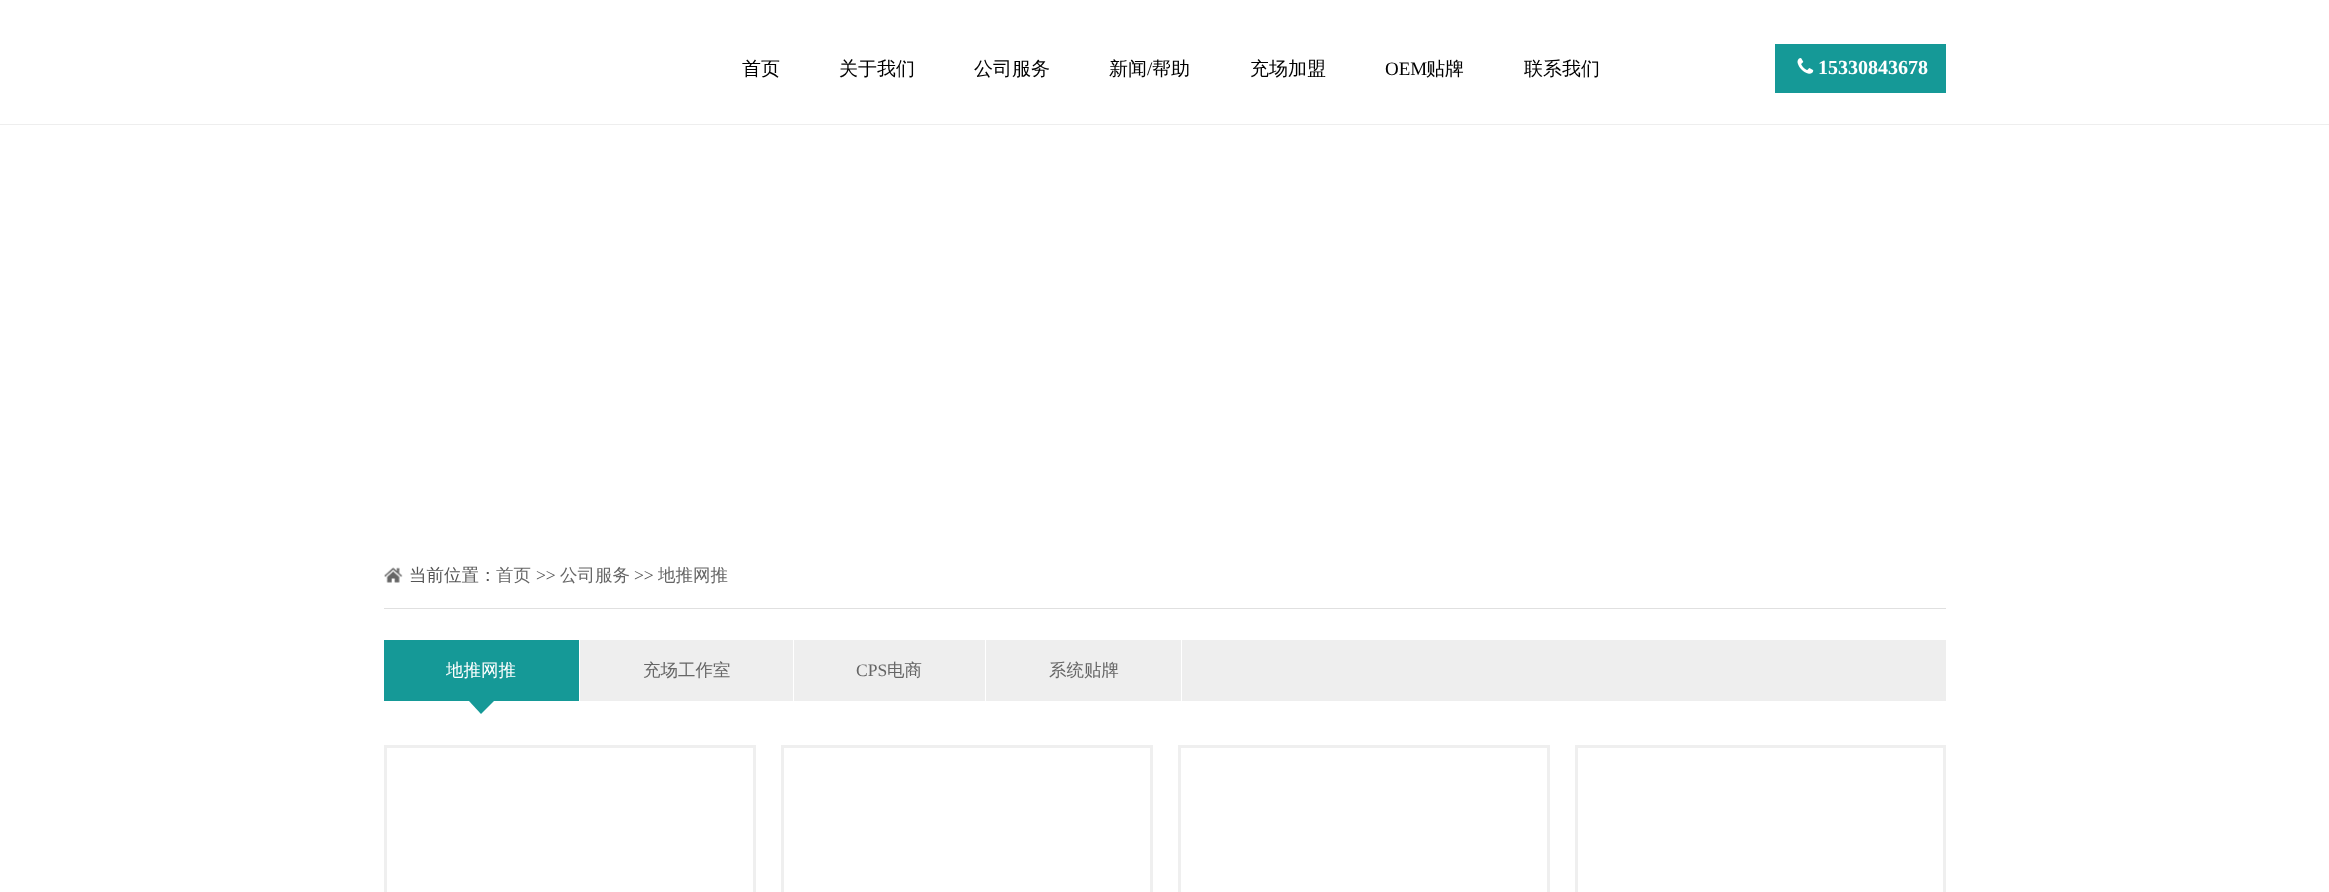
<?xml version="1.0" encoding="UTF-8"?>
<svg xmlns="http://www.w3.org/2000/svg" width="2329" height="892">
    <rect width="100%" height="100%" fill="#FFFFFF"/>
    <rect x="0" y="124" width="2329" height="1" fill="#EEEEEE"/>
    <text x="742" y="75" font-family="WenQuanYi Zen Hei" font-size="19" font-weight="500" fill="#000000">首页</text>
    <text x="839" y="75" font-family="WenQuanYi Zen Hei" font-size="19" font-weight="500" fill="#000000">关于我们</text>
    <text x="974" y="75" font-family="WenQuanYi Zen Hei" font-size="19" font-weight="500" fill="#000000">公司服务</text>
    <text x="1109" y="75" font-family="WenQuanYi Zen Hei" font-size="19" font-weight="500" fill="#000000">新闻</text>
    <text x="1147" y="75" font-family="Liberation Serif" font-size="19" fill="#000000">/</text>
    <text x="1152" y="75" font-family="WenQuanYi Zen Hei" font-size="19" font-weight="500" fill="#000000">帮助</text>
    <text x="1250" y="75" font-family="WenQuanYi Zen Hei" font-size="19" font-weight="500" fill="#000000">充场加盟</text>
    <text x="1385" y="75" font-family="Liberation Serif" font-size="19" fill="#000000">OEM</text>
    <text x="1426" y="75" font-family="WenQuanYi Zen Hei" font-size="19" font-weight="500" fill="#000000">贴牌</text>
    <text x="1524" y="75" font-family="WenQuanYi Zen Hei" font-size="19" font-weight="500" fill="#000000">联系我们</text>
    <rect x="1775" y="44" width="171" height="49" fill="#159997"/>
    <image x="1797" y="58" width="17" height="16" href="img_01.png"/>
    <text x="1818" y="74" font-family="Liberation Serif" font-size="20" font-weight="700" fill="#FFFFFF">15330843678</text>
    <image x="384" y="567" width="19" height="16" href="img_02.png"/>
    <rect x="384" y="608" width="1562" height="1" fill="#E0E0E0"/>
    <text x="409" y="581" font-family="WenQuanYi Zen Hei" font-size="17.5" font-weight="500" fill="#555555">当前位置：</text>
    <text x="496" y="581" font-family="WenQuanYi Zen Hei" font-size="17.5" font-weight="500" fill="#666666">首页</text>
    <text x="536" y="581" font-family="Liberation Serif" font-size="17.5" fill="#555555">&gt;&gt;</text>
    <text x="560" y="581" font-family="WenQuanYi Zen Hei" font-size="17.5" font-weight="500" fill="#666666">公司服务</text>
    <text x="634" y="581" font-family="Liberation Serif" font-size="17.5" fill="#555555">&gt;&gt;</text>
    <text x="658" y="581" font-family="WenQuanYi Zen Hei" font-size="17.5" font-weight="500" fill="#666666">地推网推</text>
    <rect x="580" y="640" width="1366" height="61" fill="#EEEEEE"/>
    <rect x="384" y="640" width="195" height="61" fill="#159997"/>
    <text x="446" y="676" font-family="WenQuanYi Zen Hei" font-size="17.5" font-weight="500" fill="#FFFFFF">地推网推</text>
    <path d="M 469 701 H 494 L 481 714 Z" fill="#159997"/>
    <rect x="793" y="640" width="1" height="61" fill="#FFFFFF"/>
    <text x="643" y="676" font-family="WenQuanYi Zen Hei" font-size="17.5" font-weight="500" fill="#666666">充场工作室</text>
    <rect x="985" y="640" width="1" height="61" fill="#FFFFFF"/>
    <text x="856" y="676" font-family="Liberation Serif" font-size="17.5" fill="#666666">CPS</text>
    <text x="887" y="676" font-family="WenQuanYi Zen Hei" font-size="17.5" font-weight="500" fill="#666666">电商</text>
    <rect x="1181" y="640" width="1" height="61" fill="#FFFFFF"/>
    <text x="1049" y="676" font-family="WenQuanYi Zen Hei" font-size="17.5" font-weight="500" fill="#666666">系统贴牌</text>
    <rect x="385.5" y="746.5" width="369" height="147" fill="none" stroke="#EFEFEF" stroke-width="3"/>
    <rect x="782.5" y="746.5" width="369" height="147" fill="none" stroke="#EFEFEF" stroke-width="3"/>
    <rect x="1179.5" y="746.5" width="369" height="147" fill="none" stroke="#EFEFEF" stroke-width="3"/>
    <rect x="1576.5" y="746.5" width="368" height="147" fill="none" stroke="#EFEFEF" stroke-width="3"/>
</svg>
